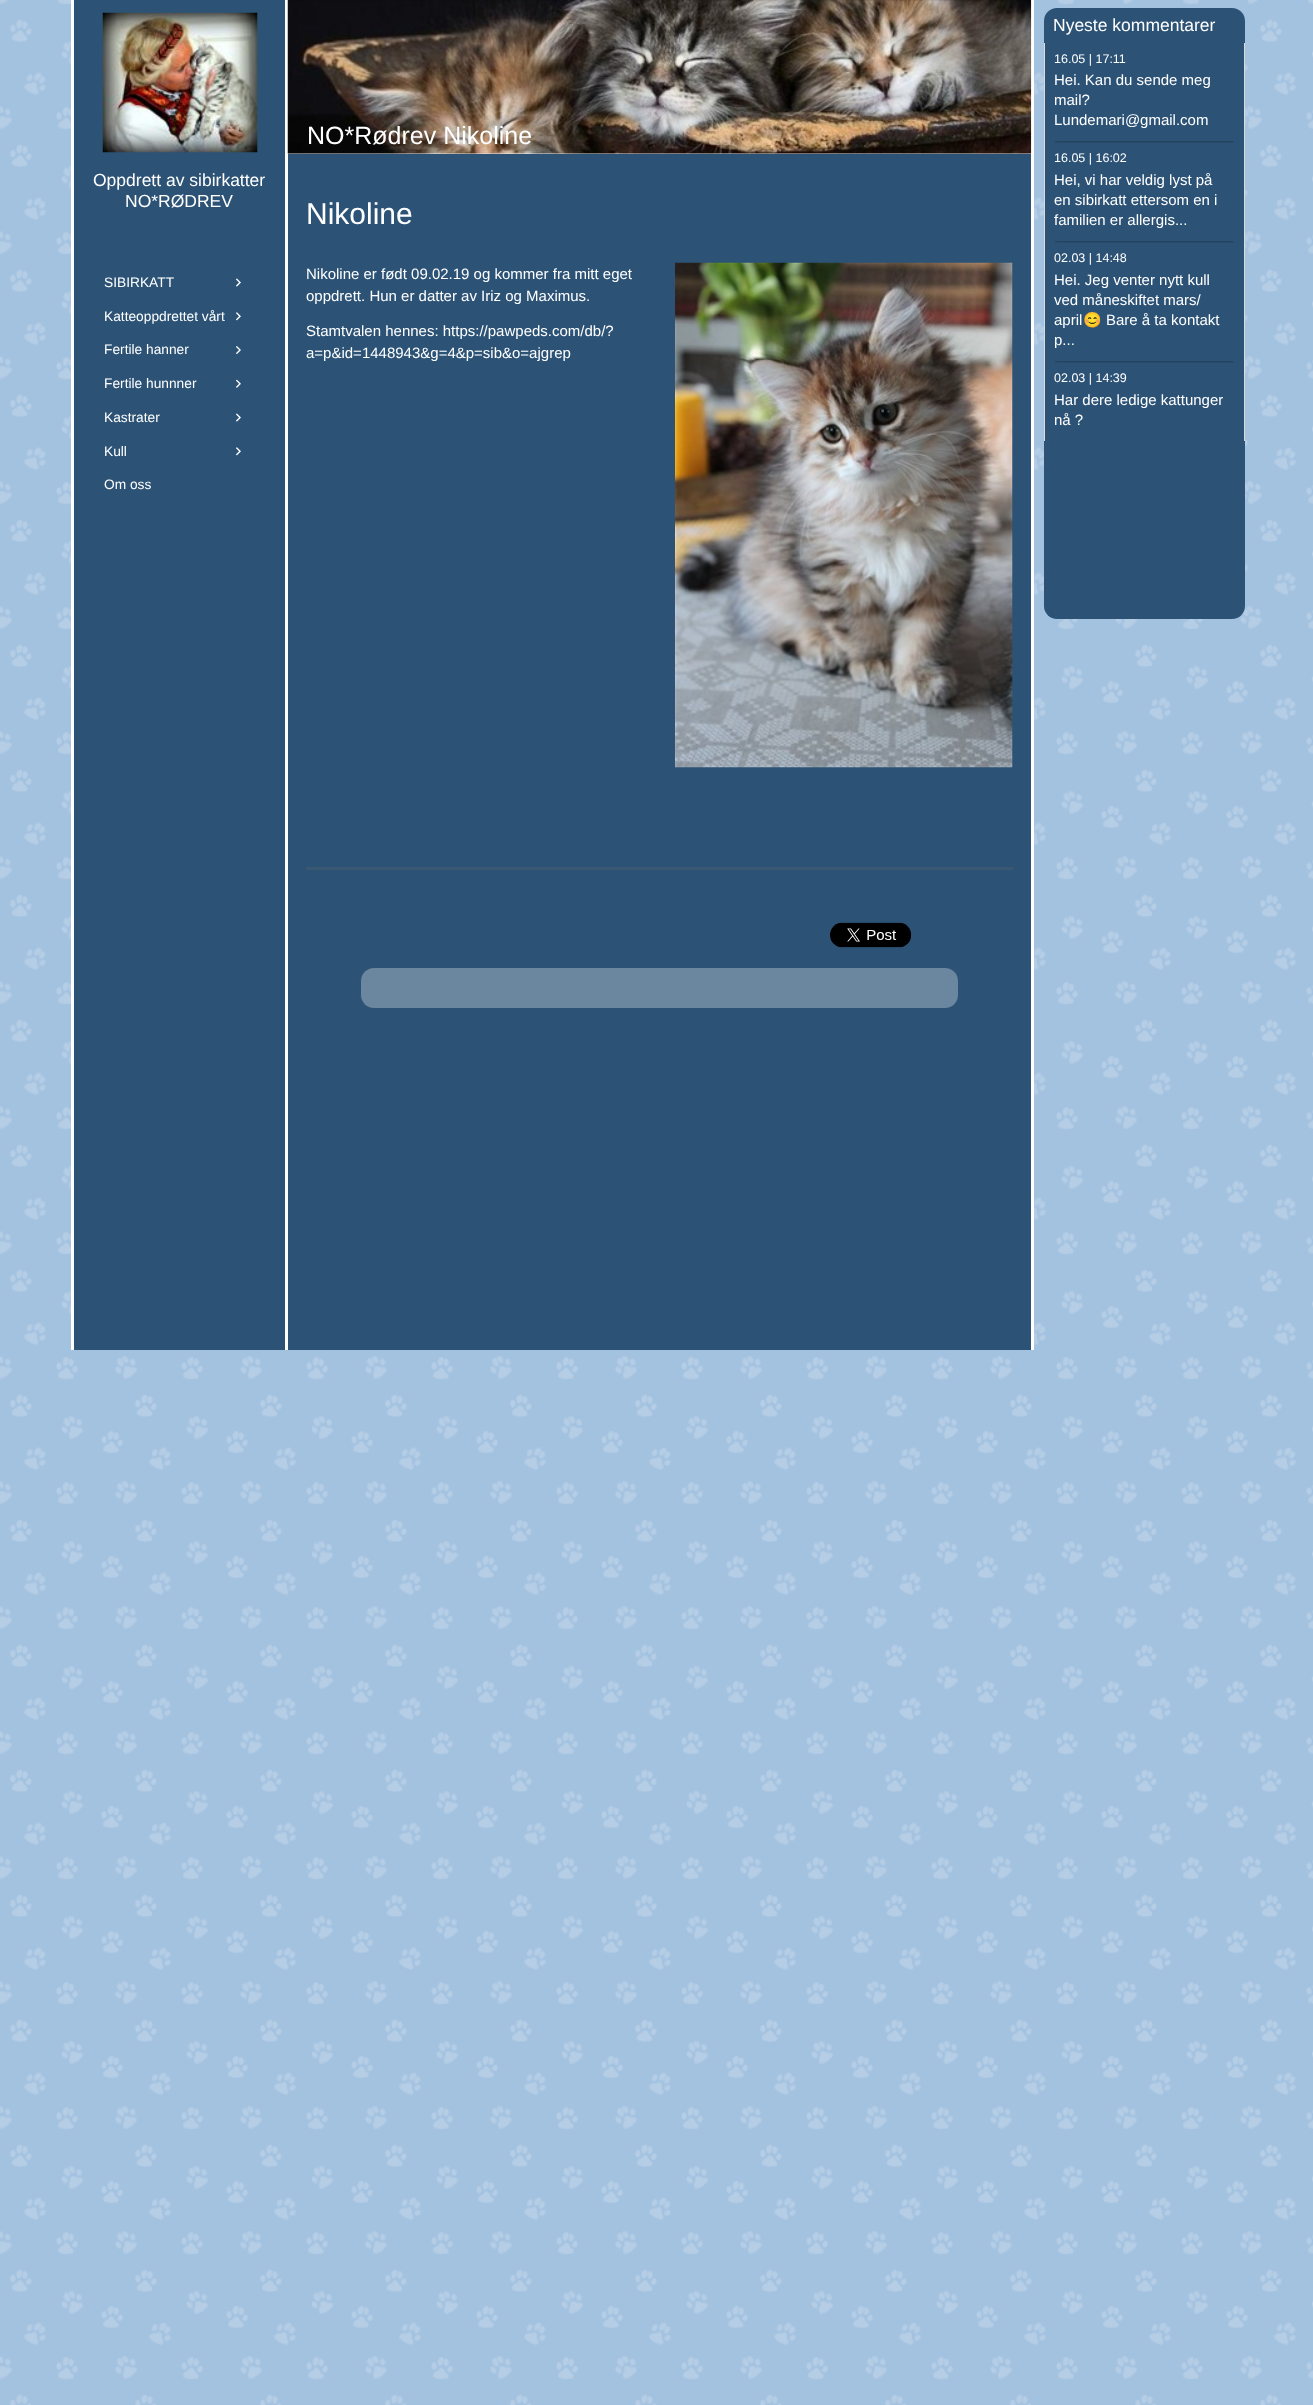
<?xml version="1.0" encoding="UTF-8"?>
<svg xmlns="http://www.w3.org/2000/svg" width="1313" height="2405">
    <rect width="100%" height="100%" fill="#A3C2E0"/>
    <image x="0" y="0" width="1313" height="2405" href="img_01.png"/>
    <rect x="71" y="0" width="963" height="1350" fill="#FFFFFF"/>
    <rect x="74" y="0" width="211" height="1350" fill="#2C5376"/>
    <image x="102" y="12" width="156" height="141" href="img_02.png"/>
    <text x="93" y="186" font-family="Liberation Sans" font-size="17.5" fill="#FFFFFF">Oppdrett av sibirkatter</text>
    <text x="125" y="207" font-family="Liberation Sans" font-size="17.5" fill="#FFFFFF">NO*RØDREV</text>
    <rect x="288" y="154" width="743" height="1196" fill="#2C5376"/>
    <image x="287" y="0" width="745" height="154" href="img_03.png"/>
    <text x="307" y="144" font-family="Liberation Sans" font-size="25" fill="#FFFFFF">NO*Rødrev Nikoline</text>
    <text x="306" y="224" font-family="Liberation Sans" font-size="30" fill="#FFFFFF">Nikoline</text>
    <text font-family="Liberation Sans" font-size="15" fill="#FFFFFF">
        <tspan x="306" y="279">Nikoline er født 09.02.19 og kommer fra mitt eget</tspan>
        <tspan x="306" y="301">oppdrett. Hun er datter av Iriz og Maximus.</tspan>
    </text>
    <image x="675" y="262" width="338" height="506" href="img_04.png"/>
    <text font-family="Liberation Sans" font-size="15" fill="#FFFFFF">
        <tspan x="306" y="336">Stamtvalen hennes: https://pawpeds.com/db/?</tspan>
        <tspan x="306" y="358">a=p&amp;id=1448943&amp;g=4&amp;p=sib&amp;o=ajgrep</tspan>
    </text>
    <rect x="306" y="867" width="707" height="3" fill="#3A5872"/>
    <image x="830" y="922" width="82" height="26" href="img_05.png"/>
    <rect x="361" y="968" width="597" height="40" rx="13" fill="#6B879F"/>
    <rect x="1044" y="8" width="201" height="611" rx="13" fill="#2C5376"/>
    <text x="1053" y="31" font-family="Liberation Sans" font-size="17.5" fill="#FFFFFF">Nyeste kommentarer</text>
    <rect x="1244" y="43" width="1" height="398" fill="#DADADA"/>
    <rect x="1044" y="43" width="1" height="398" fill="#DADADA"/>
    <text x="1054" y="63" font-family="Liberation Sans" font-size="12.5" fill="#FFFFFF">16.05 | 17:11</text>
    <text font-family="Liberation Sans" font-size="15" fill="#FFFFFF">
        <tspan x="1054" y="85">Hei. Kan du sende meg</tspan>
        <tspan x="1054" y="105">mail?</tspan>
        <tspan x="1054" y="125">Lundemari@gmail.com</tspan>
    </text>
    <image x="1055" y="141" width="179" height="2" href="img_06.png"/>
    <text x="1054" y="162" font-family="Liberation Sans" font-size="12.5" fill="#FFFFFF">16.05 | 16:02</text>
    <text font-family="Liberation Sans" font-size="15" fill="#FFFFFF">
        <tspan x="1054" y="185">Hei, vi har veldig lyst på</tspan>
        <tspan x="1054" y="205">en sibirkatt ettersom en i</tspan>
        <tspan x="1054" y="225">familien er allergis...</tspan>
    </text>
    <image x="1055" y="241" width="179" height="2" href="img_06.png"/>
    <text x="1054" y="262" font-family="Liberation Sans" font-size="12.5" fill="#FFFFFF">02.03 | 14:48</text>
    <text font-family="Liberation Sans" font-size="15" fill="#FFFFFF">
        <tspan x="1054" y="285">Hei. Jeg venter nytt kull</tspan>
        <tspan x="1054" y="305">ved måneskiftet mars/</tspan>
        <tspan x="1054" y="325">april</tspan>
    </text>
    <text x="1083" y="325" font-family="Noto Color Emoji" font-size="15" fill="#FFFFFF">😊</text>
    <text x="1106" y="325" font-family="Liberation Sans" font-size="15" fill="#FFFFFF">Bare å ta kontakt</text>
    <text x="1054" y="345" font-family="Liberation Sans" font-size="15" fill="#FFFFFF">p...</text>
    <image x="1055" y="361" width="179" height="2" href="img_06.png"/>
    <text x="1054" y="382" font-family="Liberation Sans" font-size="12.5" fill="#FFFFFF">02.03 | 14:39</text>
    <text font-family="Liberation Sans" font-size="15" fill="#FFFFFF">
        <tspan x="1054" y="405">Har dere ledige kattunger</tspan>
        <tspan x="1054" y="425">nå ?</tspan>
    </text>
    <text x="104" y="287" font-family="Liberation Sans" font-size="13.75" fill="#FFFFFF">SIBIRKATT</text>
    <image x="236" y="278" width="5" height="9" href="img_07.png"/>
    <text x="104" y="321" font-family="Liberation Sans" font-size="13.75" fill="#FFFFFF">Katteoppdrettet vårt</text>
    <image x="236" y="312" width="5" height="9" href="img_08.png"/>
    <text x="104" y="354" font-family="Liberation Sans" font-size="13.75" fill="#FFFFFF">Fertile hanner</text>
    <image x="236" y="346" width="5" height="9" href="img_09.png"/>
    <text x="104" y="388" font-family="Liberation Sans" font-size="13.75" fill="#FFFFFF">Fertile hunnner</text>
    <image x="236" y="379" width="5" height="9" href="img_10.png"/>
    <text x="104" y="422" font-family="Liberation Sans" font-size="13.75" fill="#FFFFFF">Kastrater</text>
    <image x="236" y="413" width="5" height="9" href="img_07.png"/>
    <text x="104" y="456" font-family="Liberation Sans" font-size="13.75" fill="#FFFFFF">Kull</text>
    <image x="236" y="447" width="5" height="9" href="img_08.png"/>
    <text x="104" y="489" font-family="Liberation Sans" font-size="13.75" fill="#FFFFFF">Om oss</text>
</svg>
